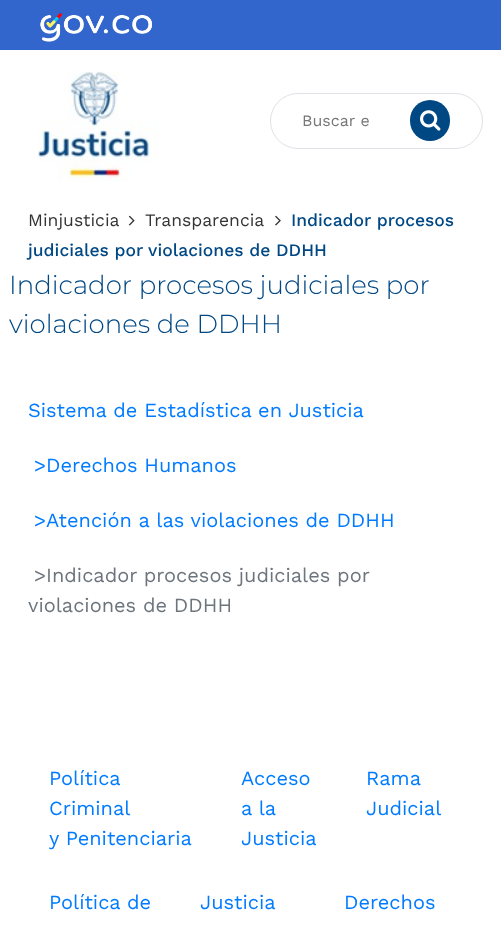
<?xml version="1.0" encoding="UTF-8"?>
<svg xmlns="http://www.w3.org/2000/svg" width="501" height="925">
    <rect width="100%" height="100%" fill="#FFFFFF"/>
    <rect x="0" y="0" width="501" height="50" fill="#3366CC"/>
    <image x="40" y="13" width="112" height="29" href="img_01.png"/>
    <image x="38" y="71" width="121" height="110" href="img_02.png"/>
    <rect x="270.5" y="93.5" width="212" height="55" rx="27.5" fill="none" stroke="#DEE2E6"/>
    <text x="302" y="126" font-family="Work Sans" font-size="16" fill="#777777">Buscar e</text>
    <rect x="410" y="100" width="40" height="41" rx="20" fill="#004884"/>
    <image x="420" y="110" width="21" height="21" href="img_03.png"/>
    <text x="28" y="226" font-family="Work Sans" font-size="17.5" fill="#333333">Minjusticia</text>
    <image x="128" y="215" width="7" height="11" href="img_04.png"/>
    <text x="145" y="226" font-family="Work Sans" font-size="17.5" fill="#333333">Transparencia</text>
    <image x="275" y="215" width="6" height="11" href="img_05.png"/>
    <text x="291" y="226" font-family="Work Sans" font-size="17.5" font-weight="500" fill="#004884">Indicador procesos</text>
    <text x="28" y="256" font-family="Work Sans" font-size="17.5" font-weight="500" fill="#004884">judiciales por violaciones de DDHH</text>
    <text font-family="Montserrat" font-size="26" font-weight="300" fill="#004884">
        <tspan x="9" y="294">Indicador procesos judiciales por</tspan>
        <tspan x="9" y="333">violaciones de DDHH</tspan>
    </text>
    <text x="28" y="417" font-family="Work Sans" font-size="20" fill="#007BFF">Sistema de Estadística en Justicia</text>
    <text x="34" y="472" font-family="Work Sans" font-size="20" fill="#007BFF">&gt;Derechos Humanos</text>
    <text x="34" y="527" font-family="Work Sans" font-size="20" fill="#007BFF">&gt;Atención a las violaciones de DDHH</text>
    <text x="34" y="582" font-family="Work Sans" font-size="20" fill="#6C757D">&gt;Indicador procesos judiciales por</text>
    <text x="28" y="612" font-family="Work Sans" font-size="20" fill="#6C757D">violaciones de DDHH</text>
    <text font-family="Work Sans" font-size="20" fill="#007BFF">
        <tspan x="49" y="785">Política</tspan>
        <tspan x="49" y="815">Criminal</tspan>
        <tspan x="49" y="845">y Penitenciaria</tspan>
    </text>
    <text font-family="Work Sans" font-size="20" fill="#007BFF">
        <tspan x="241" y="785">Acceso</tspan>
        <tspan x="241" y="815">a la</tspan>
        <tspan x="241" y="845">Justicia</tspan>
    </text>
    <text font-family="Work Sans" font-size="20" fill="#007BFF">
        <tspan x="366" y="785">Rama</tspan>
        <tspan x="366" y="815">Judicial</tspan>
    </text>
    <text x="49" y="909" font-family="Work Sans" font-size="20" fill="#007BFF">Política de</text>
    <text x="200" y="909" font-family="Work Sans" font-size="20" fill="#007BFF">Justicia</text>
    <text x="344" y="909" font-family="Work Sans" font-size="20" fill="#007BFF">Derechos</text>
</svg>
